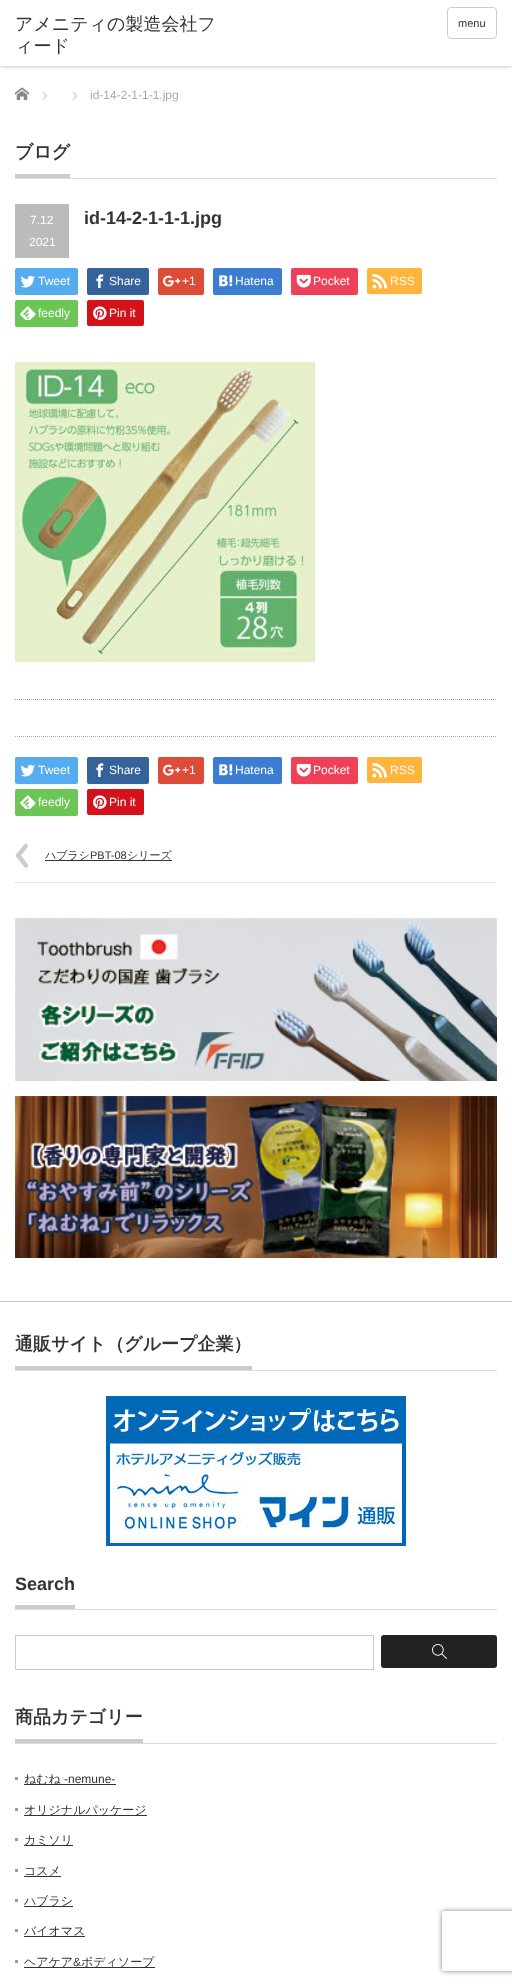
<?xml version="1.0" encoding="UTF-8"?>
<svg xmlns="http://www.w3.org/2000/svg" width="512" height="1985">
    <defs>
        <clipPath id="clip1"><rect x="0" y="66" width="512" height="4"/></clipPath>
        <filter id="blur1" x="-50%" y="-200%" width="200%" height="500%"><feGaussianBlur stdDeviation="2.5"/></filter>
        <clipPath id="clip2"><path d="M 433 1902 H 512 V 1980 H 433 Z M 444 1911 H 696 C 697 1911 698 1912 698 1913 V 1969 C 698 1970 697 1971 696 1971 H 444 C 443 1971 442 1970 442 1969 V 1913 C 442 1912 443 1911 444 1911 Z" clip-rule="evenodd"/></clipPath>
    </defs>
    <rect width="100%" height="100%" fill="#FFFFFF"/>
    <g clip-path="url(#clip1)">
        <rect x="0" y="0" width="512" height="66" fill="#000000" fill-opacity="0.3" filter="url(#blur1)"/>
    </g>
    <text font-family="WenQuanYi Zen Hei" font-size="18" font-weight="500" fill="#333333">
        <tspan x="15" y="30">アメニティの製造会社フ</tspan>
        <tspan x="15" y="52">ィード</tspan>
    </text>
    <rect x="447.5" y="7.5" width="49" height="31" rx="3.5" fill="none" stroke="#CCCCCC"/>
    <text x="458" y="27" font-family="Liberation Sans" font-size="11" fill="#333333">menu</text>
    <image x="15" y="87" width="14" height="13" href="img_01.png"/>
    <image x="42" y="92" width="5" height="8" href="img_02.png"/>
    <image x="72" y="92" width="5" height="8" href="img_02.png"/>
    <text x="90" y="99" font-family="Liberation Sans" font-size="12" fill="#AAAAAA">id-14-2-1-1-1.jpg</text>
    <rect x="15" y="178" width="482" height="1" fill="#DDDDDD"/>
    <rect x="15" y="174" width="55" height="4" fill="#CCCCCC"/>
    <text x="15" y="158" font-family="WenQuanYi Zen Hei" font-size="18" font-weight="700" fill="#333333">ブログ</text>
    <rect x="15" y="204" width="54" height="54" fill="#BBBBBB"/>
    <text x="30" y="224" font-family="Liberation Sans" font-size="12" fill="#FFFFFF">7.12</text>
    <text x="29" y="246" font-family="Liberation Sans" font-size="12" fill="#FFFFFF">2021</text>
    <text x="84" y="224" font-family="Liberation Sans" font-size="18" font-weight="700" fill="#333333">id-14-2-1-1-1.jpg</text>
    <path d="M 15 293 C 15 299 23 296 27 296 H 66 C 70 296 78 299 78 293 C 78 297 70 295 66 295 H 16 Z" fill="#F7F7F7"/>
    <rect x="15" y="268" width="63" height="27" rx="2" fill="#55ACEE"/>
    <image x="20" y="275" width="15" height="13" href="img_03.png"/>
    <text x="38" y="285" font-family="Liberation Sans" font-size="12" fill="#FFFFFF">Tweet</text>
    <path d="M 87 293 C 87 299 95 296 99 296 H 137 C 141 296 149 299 149 293 L 148 295 H 99 C 95 295 87 297 87 293 Z" fill="#F7F7F7"/>
    <rect x="87" y="268" width="62" height="27" rx="2" fill="#35629A"/>
    <image x="96" y="274" width="8" height="14" href="img_04.png"/>
    <text x="109" y="285" font-family="Liberation Sans" font-size="12" fill="#FFFFFF">Share</text>
    <path d="M 158 293 C 158 298 163 296 167 296 H 195 C 199 296 204 298 204 293 C 204 294 203 295 202 295 H 160 C 159 295 158 294 158 293 Z" fill="#F7F7F7"/>
    <rect x="158" y="268" width="46" height="27" rx="2" fill="#DD4B39"/>
    <image x="163" y="275" width="18" height="12" href="img_05.png"/>
    <text x="182" y="285" font-family="Liberation Sans" font-size="12" fill="#FFFFFF">+1</text>
    <path d="M 213 293 C 213 299 222 296 226 296 H 269 C 273 296 282 299 282 293 C 282 294 281 295 280 295 H 214 Z" fill="#F7F7F7"/>
    <rect x="213" y="268" width="69" height="27" rx="2" fill="#3C7DD1"/>
    <image x="219" y="275" width="14" height="12" href="img_06.png"/>
    <text x="235" y="285" font-family="Liberation Sans" font-size="12" fill="#FFFFFF">Hatena</text>
    <path d="M 291 293 C 291 299 300 296 304 296 H 346 C 349 296 358 299 358 293 L 357 295 H 293 L 291 294 Z" fill="#F7F7F7"/>
    <rect x="291" y="268" width="67" height="27" rx="2" fill="#EE4056"/>
    <image x="296" y="274" width="15" height="14" href="img_07.png"/>
    <text x="313" y="285" font-family="Liberation Sans" font-size="12" fill="#FFFFFF">Pocket</text>
    <path d="M 367 292 C 367 297 374 295 378 295 H 412 C 415 295 422 297 422 292 L 421 294 H 368 Z" fill="#F7F7F7"/>
    <rect x="367" y="268" width="55" height="26" rx="2" fill="#FFB53C"/>
    <image x="372" y="273" width="16" height="16" href="img_08.png"/>
    <text x="390" y="285" font-family="Liberation Sans" font-size="12" fill="#FFFFFF">RSS</text>
    <path d="M 15 325 C 15 331 23 328 27 328 H 66 C 70 328 78 331 78 325 C 78 329 70 327 66 327 H 16 Z" fill="#F7F7F7"/>
    <rect x="15" y="300" width="63" height="27" rx="2" fill="#6CC655"/>
    <image x="20" y="306" width="16" height="14" href="img_09.png"/>
    <text x="38" y="317" font-family="Liberation Sans" font-size="12" fill="#FFFFFF">feedly</text>
    <path d="M 87 324 C 87 329 94 327 98 327 H 133 C 137 327 144 329 144 324 L 143 326 H 98 C 94 326 87 328 87 324 Z" fill="#F7F7F7"/>
    <rect x="87" y="300" width="57" height="26" rx="2" fill="#D4121C"/>
    <image x="93" y="306" width="14" height="14" href="img_10.png"/>
    <text x="109" y="317" font-family="Liberation Sans" font-size="12" fill="#FFFFFF">Pin it</text>
    <image x="15" y="362" width="300" height="300" href="img_11.png"/>
    <path d="M 15 699.5 H 497" fill="none" stroke="#AAAAAA" stroke-dasharray="1 1"/>
    <path d="M 15 736.5 H 497" fill="none" stroke="#AAAAAA" stroke-dasharray="1 1"/>
    <path d="M 15 782 C 15 788 23 785 27 785 H 66 C 70 785 78 788 78 782 C 78 786 70 784 66 784 H 16 Z" fill="#F7F7F7"/>
    <rect x="15" y="757" width="63" height="27" rx="2" fill="#55ACEE"/>
    <image x="20" y="764" width="15" height="13" href="img_03.png"/>
    <text x="38" y="774" font-family="Liberation Sans" font-size="12" fill="#FFFFFF">Tweet</text>
    <path d="M 87 782 C 87 788 95 785 99 785 H 137 C 141 785 149 788 149 782 L 148 784 H 99 C 95 784 87 786 87 782 Z" fill="#F7F7F7"/>
    <rect x="87" y="757" width="62" height="27" rx="2" fill="#35629A"/>
    <image x="96" y="763" width="8" height="14" href="img_04.png"/>
    <text x="109" y="774" font-family="Liberation Sans" font-size="12" fill="#FFFFFF">Share</text>
    <path d="M 158 782 C 158 787 163 785 167 785 H 195 C 199 785 204 787 204 782 C 204 783 203 784 202 784 H 160 C 159 784 158 783 158 782 Z" fill="#F7F7F7"/>
    <rect x="158" y="757" width="46" height="27" rx="2" fill="#DD4B39"/>
    <image x="163" y="764" width="18" height="12" href="img_05.png"/>
    <text x="182" y="774" font-family="Liberation Sans" font-size="12" fill="#FFFFFF">+1</text>
    <path d="M 213 782 C 213 788 222 785 226 785 H 269 C 273 785 282 788 282 782 C 282 783 281 784 280 784 H 214 Z" fill="#F7F7F7"/>
    <rect x="213" y="757" width="69" height="27" rx="2" fill="#3C7DD1"/>
    <image x="219" y="764" width="14" height="12" href="img_06.png"/>
    <text x="235" y="774" font-family="Liberation Sans" font-size="12" fill="#FFFFFF">Hatena</text>
    <path d="M 291 782 C 291 788 300 785 304 785 H 346 C 349 785 358 788 358 782 L 357 784 H 293 L 291 783 Z" fill="#F7F7F7"/>
    <rect x="291" y="757" width="67" height="27" rx="2" fill="#EE4056"/>
    <image x="296" y="763" width="15" height="14" href="img_07.png"/>
    <text x="313" y="774" font-family="Liberation Sans" font-size="12" fill="#FFFFFF">Pocket</text>
    <path d="M 367 781 C 367 786 374 784 378 784 H 412 C 415 784 422 786 422 781 L 421 783 H 368 Z" fill="#F7F7F7"/>
    <rect x="367" y="757" width="55" height="26" rx="2" fill="#FFB53C"/>
    <image x="372" y="762" width="16" height="16" href="img_08.png"/>
    <text x="390" y="774" font-family="Liberation Sans" font-size="12" fill="#FFFFFF">RSS</text>
    <path d="M 15 814 C 15 820 23 817 27 817 H 66 C 70 817 78 820 78 814 C 78 818 70 816 66 816 H 16 Z" fill="#F7F7F7"/>
    <rect x="15" y="789" width="63" height="27" rx="2" fill="#6CC655"/>
    <image x="20" y="795" width="16" height="14" href="img_09.png"/>
    <text x="38" y="806" font-family="Liberation Sans" font-size="12" fill="#FFFFFF">feedly</text>
    <path d="M 87 813 C 87 818 94 816 98 816 H 133 C 137 816 144 818 144 813 L 143 815 H 98 C 94 815 87 817 87 813 Z" fill="#F7F7F7"/>
    <rect x="87" y="789" width="57" height="26" rx="2" fill="#D4121C"/>
    <image x="93" y="795" width="14" height="14" href="img_10.png"/>
    <text x="109" y="806" font-family="Liberation Sans" font-size="12" fill="#FFFFFF">Pin it</text>
    <image x="15" y="843" width="13" height="25" href="img_12.png"/>
    <path d="M 15 882.5 H 497" fill="none" stroke="#CCCCCC" stroke-dasharray="1 1"/>
    <rect x="45" y="860" width="127" height="1" fill="#333333"/>
    <text x="45" y="859" font-family="WenQuanYi Zen Hei" font-size="11" font-weight="500" fill="#333333">ハブラシ</text>
    <text x="90" y="859" font-family="Liberation Sans" font-size="11" fill="#333333">PBT-08</text>
    <text x="127" y="859" font-family="WenQuanYi Zen Hei" font-size="11" font-weight="500" fill="#333333">シリーズ</text>
    <image x="15" y="918" width="482" height="163" href="img_13.png"/>
    <image x="15" y="1096" width="482" height="162" href="img_14.png"/>
    <rect x="0" y="1301" width="512" height="1" fill="#CCCCCC"/>
    <rect x="15" y="1370" width="482" height="1" fill="#DDDDDD"/>
    <rect x="15" y="1366" width="237" height="4" fill="#CCCCCC"/>
    <text x="15" y="1350" font-family="WenQuanYi Zen Hei" font-size="18" font-weight="700" fill="#333333">通販サイト（グループ企業）</text>
    <image x="106" y="1396" width="300" height="150" href="img_15.png"/>
    <rect x="15" y="1609" width="482" height="1" fill="#DDDDDD"/>
    <rect x="15" y="1605" width="60" height="4" fill="#CCCCCC"/>
    <text x="15" y="1590" font-family="Liberation Sans" font-size="18" font-weight="700" fill="#333333">Search</text>
    <rect x="15.5" y="1635.5" width="358" height="34" fill="none" stroke="#CCCCCC"/>
    <rect x="381" y="1635" width="116" height="33" rx="3" fill="#222222"/>
    <image x="432" y="1644" width="15" height="15" href="img_16.png"/>
    <rect x="15" y="1743" width="482" height="1" fill="#DDDDDD"/>
    <rect x="15" y="1739" width="128" height="4" fill="#CCCCCC"/>
    <text x="15" y="1723" font-family="WenQuanYi Zen Hei" font-size="18" font-weight="700" fill="#333333">商品カテゴリー</text>
    <rect x="15" y="1777" width="3" height="3" fill="#999999"/>
    <rect x="24" y="1784" width="92" height="1" fill="#333333"/>
    <text x="24" y="1783" font-family="WenQuanYi Zen Hei" font-size="12" font-weight="500" fill="#333333">ねむね</text>
    <text x="64" y="1783" font-family="Liberation Sans" font-size="12" fill="#333333">-nemune-</text>
    <rect x="15" y="1808" width="3" height="3" fill="#999999"/>
    <rect x="24" y="1815" width="123" height="1" fill="#333333"/>
    <text x="24" y="1814" font-family="WenQuanYi Zen Hei" font-size="12" font-weight="500" fill="#333333">オリジナルパッケージ</text>
    <rect x="15" y="1838" width="3" height="3" fill="#999999"/>
    <rect x="24" y="1845" width="49" height="1" fill="#333333"/>
    <text x="24" y="1844" font-family="WenQuanYi Zen Hei" font-size="12" font-weight="500" fill="#333333">カミソリ</text>
    <rect x="15" y="1869" width="3" height="3" fill="#999999"/>
    <text x="24" y="1875" font-family="WenQuanYi Zen Hei" font-size="12" font-weight="500" fill="#333333">コスメ</text>
    <rect x="24" y="1876" width="37" height="1" fill="#333333"/>
    <rect x="15" y="1899" width="3" height="3" fill="#999999"/>
    <rect x="24" y="1906" width="49" height="1" fill="#333333"/>
    <text x="24" y="1905" font-family="WenQuanYi Zen Hei" font-size="12" font-weight="500" fill="#333333">ハブラシ</text>
    <rect x="15" y="1929" width="3" height="3" fill="#999999"/>
    <rect x="24" y="1936" width="61" height="1" fill="#333333"/>
    <text x="24" y="1935" font-family="WenQuanYi Zen Hei" font-size="12" font-weight="500" fill="#333333">バイオマス</text>
    <rect x="15" y="1960" width="3" height="3" fill="#999999"/>
    <rect x="24" y="1967" width="131" height="1" fill="#333333"/>
    <text x="24" y="1966" font-family="WenQuanYi Zen Hei" font-size="12" font-weight="500" fill="#333333">ヘアケア</text>
    <text x="73" y="1966" font-family="Liberation Sans" font-size="12" fill="#333333">&amp;</text>
    <text x="81" y="1966" font-family="WenQuanYi Zen Hei" font-size="12" font-weight="500" fill="#333333">ボディソープ</text>
    <g clip-path="url(#clip2)">
        <rect x="442" y="1911" width="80" height="60" rx="2" fill="#808080" filter="url(#blur1)"/>
    </g>
</svg>
